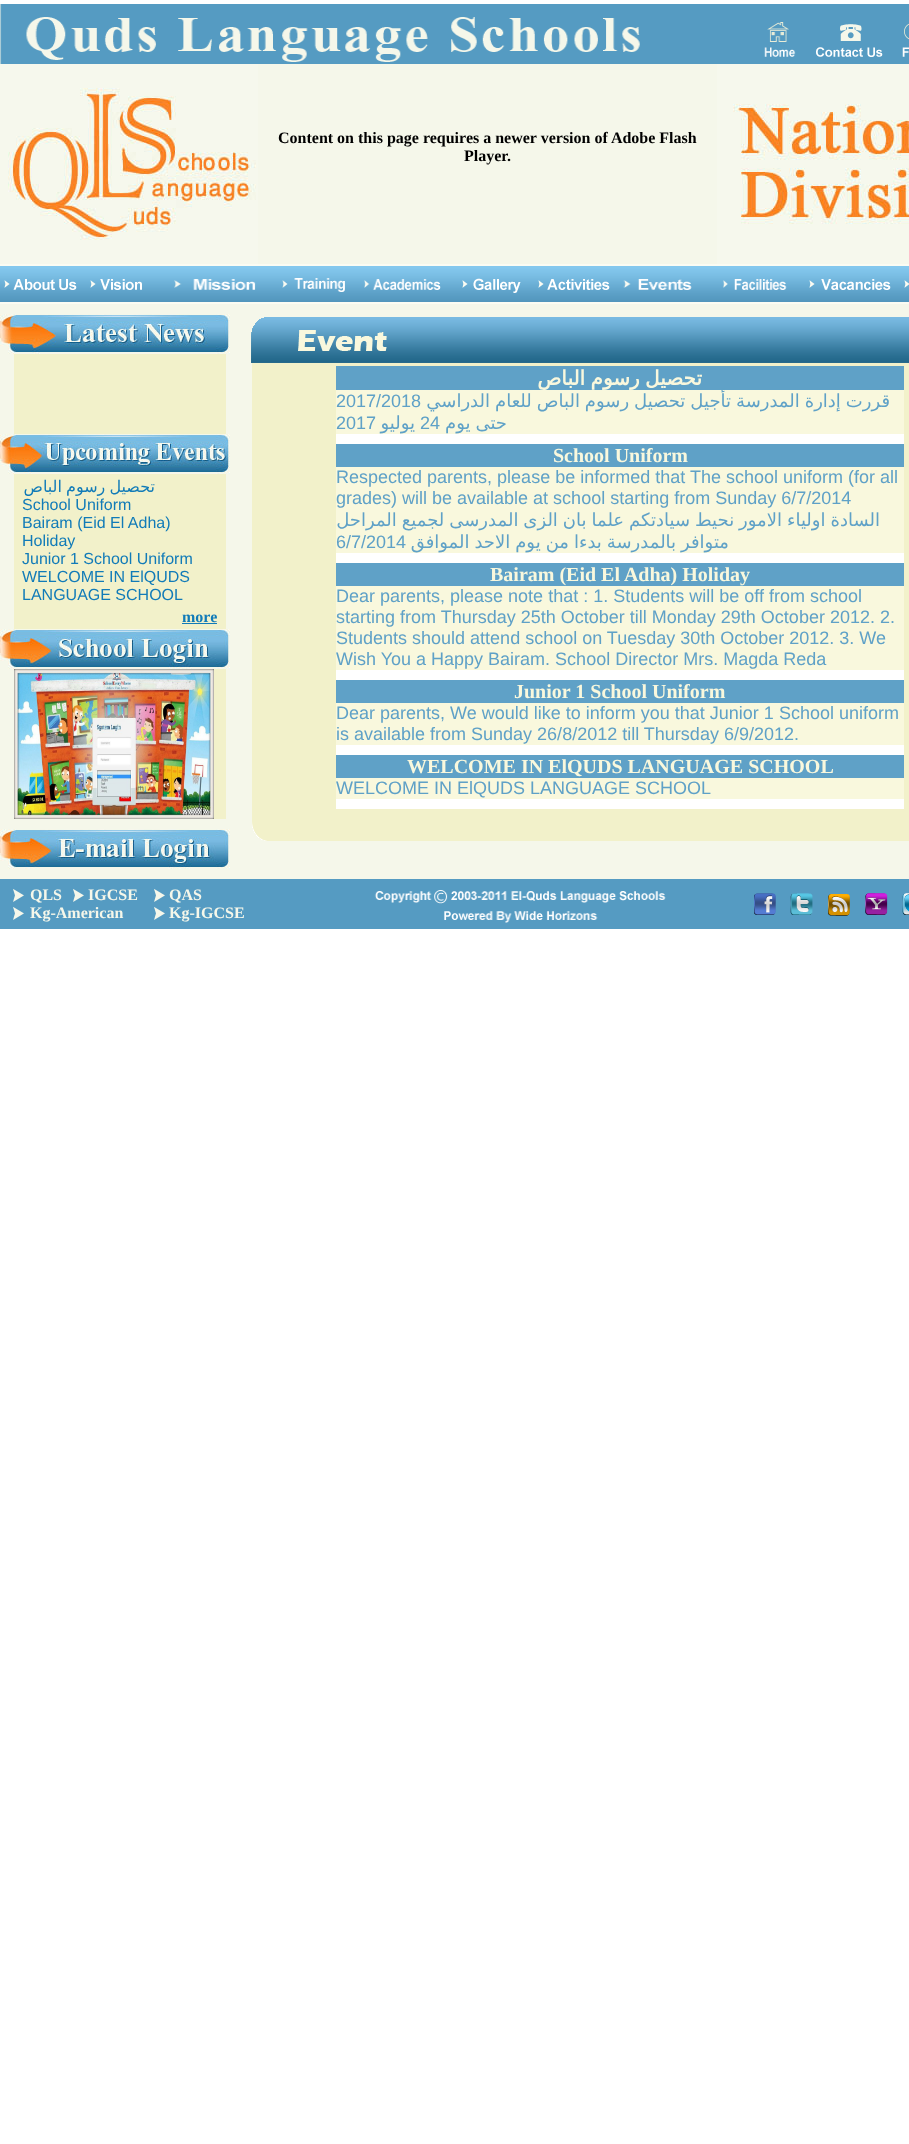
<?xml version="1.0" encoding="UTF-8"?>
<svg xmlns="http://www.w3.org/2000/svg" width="909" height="2144">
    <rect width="100%" height="100%" fill="#FFFFFF"/>
    <image x="0" y="4" width="715" height="60" href="img_01.png"/>
    <image x="715" y="4" width="88" height="60" href="img_02.png"/>
    <image x="803" y="4" width="96" height="60" href="img_03.png"/>
    <image x="899" y="4" width="10" height="60" href="img_04.png"/>
    <image x="0" y="64" width="258" height="200" href="img_05.png"/>
    <rect x="258" y="64" width="459" height="200" fill="#F5F7EA"/>
    <text x="278" y="143" font-family="Liberation Serif" font-size="16" font-weight="700" fill="#000000">Content on this page requires a newer version of Adobe Flash</text>
    <text x="464" y="161" font-family="Liberation Serif" font-size="16" font-weight="700" fill="#000000">Player.</text>
    <image x="717" y="64" width="192" height="200" href="img_06.png"/>
    <image x="0" y="264" width="86" height="40" href="img_07.png"/>
    <image x="86" y="264" width="69" height="40" href="img_08.png"/>
    <image x="155" y="264" width="119" height="40" href="img_09.png"/>
    <image x="274" y="264" width="81" height="40" href="img_10.png"/>
    <image x="355" y="264" width="101" height="40" href="img_11.png"/>
    <image x="456" y="264" width="77" height="40" href="img_12.png"/>
    <image x="533" y="264" width="85" height="40" href="img_13.png"/>
    <image x="618" y="264" width="97" height="40" href="img_14.png"/>
    <image x="715" y="264" width="88" height="40" href="img_15.png"/>
    <image x="803" y="264" width="96" height="40" href="img_16.png"/>
    <image x="899" y="264" width="10" height="40" href="img_17.png"/>
    <rect x="0" y="304" width="909" height="575" fill="#F5F7EA"/>
    <image x="0" y="314" width="230" height="40" href="img_18.png"/>
    <rect x="14" y="354" width="212" height="80" fill="#F2F1CA"/>
    <image x="0" y="434" width="230" height="40" href="img_19.png"/>
    <rect x="14" y="474" width="212" height="155" fill="#F2F1CA"/>
    <text x="155" y="492" word-spacing="-1" font-family="DejaVu Sans" font-size="16" direction="rtl" fill="#117BB8">تحصيل رسوم الباص</text>
    <text font-family="Liberation Sans" font-size="16" fill="#117BB8">
        <tspan x="22" y="510">School Uniform</tspan>
        <tspan x="22" y="528">Bairam (Eid El Adha)</tspan>
        <tspan x="22" y="546">Holiday</tspan>
        <tspan x="22" y="564">Junior 1 School Uniform</tspan>
        <tspan x="22" y="582">WELCOME IN ElQUDS</tspan>
        <tspan x="22" y="600">LANGUAGE SCHOOL</tspan>
    </text>
    <text x="182" y="622" font-family="Liberation Serif" font-size="16" font-weight="700" fill="#117BB8">more</text>
    <rect x="182" y="623" width="35" height="1" fill="#117BB8"/>
    <image x="0" y="629" width="230" height="40" href="img_20.png"/>
    <rect x="214" y="669" width="12" height="150" fill="#F2F1CA"/>
    <image x="14" y="669" width="200" height="150" href="img_21.png"/>
    <image x="0" y="829" width="230" height="40" href="img_22.png"/>
    <image x="251" y="317" width="658" height="46" href="img_23.png"/>
    <rect x="252" y="363" width="657" height="453" fill="#F2F1CA"/>
    <rect x="336" y="366" width="568" height="24" fill="#5FA1C7"/>
    <text x="702" y="385" word-spacing="-1" font-family="DejaVu Sans" font-size="20" font-weight="700" direction="rtl" fill="#F9F8DD">تحصيل رسوم الباص</text>
    <rect x="336" y="390" width="568" height="44" fill="#F9F8DD"/>
    <text x="336" y="407" font-family="Liberation Sans" font-size="18" fill="#5FA1C7">2017/2018</text>
    <text x="890" y="407" word-spacing="-0.75" font-family="DejaVu Sans" font-size="18" direction="rtl" fill="#5FA1C7">قررت إدارة المدرسة تأجيل تحصيل رسوم الباص للعام الدراسي</text>
    <text x="336" y="429" font-family="Liberation Sans" font-size="18" fill="#5FA1C7">2017</text>
    <text x="415" y="429" font-family="DejaVu Sans" font-size="18" direction="rtl" fill="#5FA1C7">يوليو</text>
    <text x="420" y="429" font-family="Liberation Sans" font-size="18" fill="#5FA1C7">24</text>
    <text x="507" y="429" word-spacing="-0.75" font-family="DejaVu Sans" font-size="18" direction="rtl" fill="#5FA1C7">حتى يوم</text>
    <rect x="336" y="434" width="568" height="10" fill="#FFFFFF"/>
    <rect x="336" y="444" width="568" height="23" fill="#5FA1C7"/>
    <text x="553" y="462" font-family="Liberation Serif" font-size="20" font-weight="700" fill="#F9F8DD">School Uniform</text>
    <rect x="336" y="467" width="568" height="86" fill="#F9F8DD"/>
    <text font-family="Liberation Sans" font-size="18" fill="#5FA1C7">
        <tspan x="336" y="483">Respected parents, please be informed that The school uniform (for all</tspan>
        <tspan x="336" y="504">grades) will be available at school starting from Sunday 6/7/2014</tspan>
    </text>
    <text x="880" y="526" word-spacing="-0.75" font-family="DejaVu Sans" font-size="18" direction="rtl" fill="#5FA1C7">السادة اولياء الامور نحيط سيادتكم علما بان الزى المدرسى لجميع المراحل</text>
    <text x="336" y="548" font-family="Liberation Sans" font-size="18" fill="#5FA1C7">6/7/2014</text>
    <text x="729" y="548" word-spacing="-0.75" font-family="DejaVu Sans" font-size="18" direction="rtl" fill="#5FA1C7">متوافر بالمدرسة بدءا من يوم الاحد الموافق</text>
    <rect x="336" y="553" width="568" height="10" fill="#FFFFFF"/>
    <rect x="336" y="563" width="568" height="23" fill="#5FA1C7"/>
    <text x="490" y="581" font-family="Liberation Serif" font-size="20" font-weight="700" fill="#F9F8DD">Bairam (Eid El Adha) Holiday</text>
    <rect x="336" y="586" width="568" height="84" fill="#F9F8DD"/>
    <text font-family="Liberation Sans" font-size="18" fill="#5FA1C7">
        <tspan x="336" y="602">Dear parents, please note that : 1. Students will be off from school</tspan>
        <tspan x="336" y="623">starting from Thursday 25th October till Monday 29th October 2012. 2.</tspan>
        <tspan x="336" y="644">Students should attend school on Tuesday 30th October 2012. 3. We</tspan>
        <tspan x="336" y="665">Wish You a Happy Bairam. School Director Mrs. Magda Reda</tspan>
    </text>
    <rect x="336" y="670" width="568" height="10" fill="#FFFFFF"/>
    <rect x="336" y="680" width="568" height="23" fill="#5FA1C7"/>
    <text x="514" y="698" font-family="Liberation Serif" font-size="20" font-weight="700" fill="#F9F8DD">Junior 1 School Uniform</text>
    <rect x="336" y="703" width="568" height="42" fill="#F9F8DD"/>
    <text font-family="Liberation Sans" font-size="18" fill="#5FA1C7">
        <tspan x="336" y="719">Dear parents, We would like to inform you that Junior 1 School uniform</tspan>
        <tspan x="336" y="740">is available from Sunday 26/8/2012 till Thursday 6/9/2012.</tspan>
    </text>
    <rect x="336" y="745" width="568" height="10" fill="#FFFFFF"/>
    <rect x="336" y="755" width="568" height="23" fill="#5FA1C7"/>
    <text x="407" y="773" font-family="Liberation Serif" font-size="20" font-weight="700" fill="#F9F8DD">WELCOME IN ElQUDS LANGUAGE SCHOOL</text>
    <rect x="336" y="778" width="568" height="21" fill="#F9F8DD"/>
    <text x="336" y="794" font-family="Liberation Sans" font-size="18" fill="#5FA1C7">WELCOME IN ElQUDS LANGUAGE SCHOOL</text>
    <rect x="336" y="799" width="568" height="10" fill="#FFFFFF"/>
    <image x="252" y="816" width="657" height="25" href="img_24.png"/>
    <rect x="0" y="879" width="274" height="50" fill="#559BC2"/>
    <image x="13" y="889" width="11" height="13" href="img_25.png"/>
    <text x="30" y="900" font-family="Liberation Serif" font-size="16" font-weight="700" fill="#F5F7EA">QLS</text>
    <image x="73" y="889" width="11" height="13" href="img_25.png"/>
    <text x="88" y="900" font-family="Liberation Serif" font-size="16" font-weight="700" fill="#F5F7EA">IGCSE</text>
    <image x="154" y="889" width="11" height="13" href="img_25.png"/>
    <text x="169" y="900" font-family="Liberation Serif" font-size="16" font-weight="700" fill="#F5F7EA">QAS</text>
    <image x="13" y="907" width="11" height="13" href="img_25.png"/>
    <text x="30" y="918" font-family="Liberation Serif" font-size="16" font-weight="700" fill="#F5F7EA">Kg-American</text>
    <image x="154" y="907" width="11" height="13" href="img_25.png"/>
    <text x="169" y="918" font-family="Liberation Serif" font-size="16" font-weight="700" fill="#F5F7EA">Kg-IGCSE</text>
    <image x="274" y="879" width="441" height="50" href="img_26.png"/>
    <rect x="715" y="879" width="194" height="50" fill="#559BC2"/>
    <image x="754" y="893" width="22" height="22" href="img_27.png"/>
    <image x="790" y="893" width="23" height="22" href="img_28.png"/>
    <image x="828" y="894" width="22" height="22" href="img_29.png"/>
    <image x="865" y="893" width="23" height="22" href="img_30.png"/>
    <image x="902" y="893" width="7" height="22" href="img_31.png"/>
</svg>
